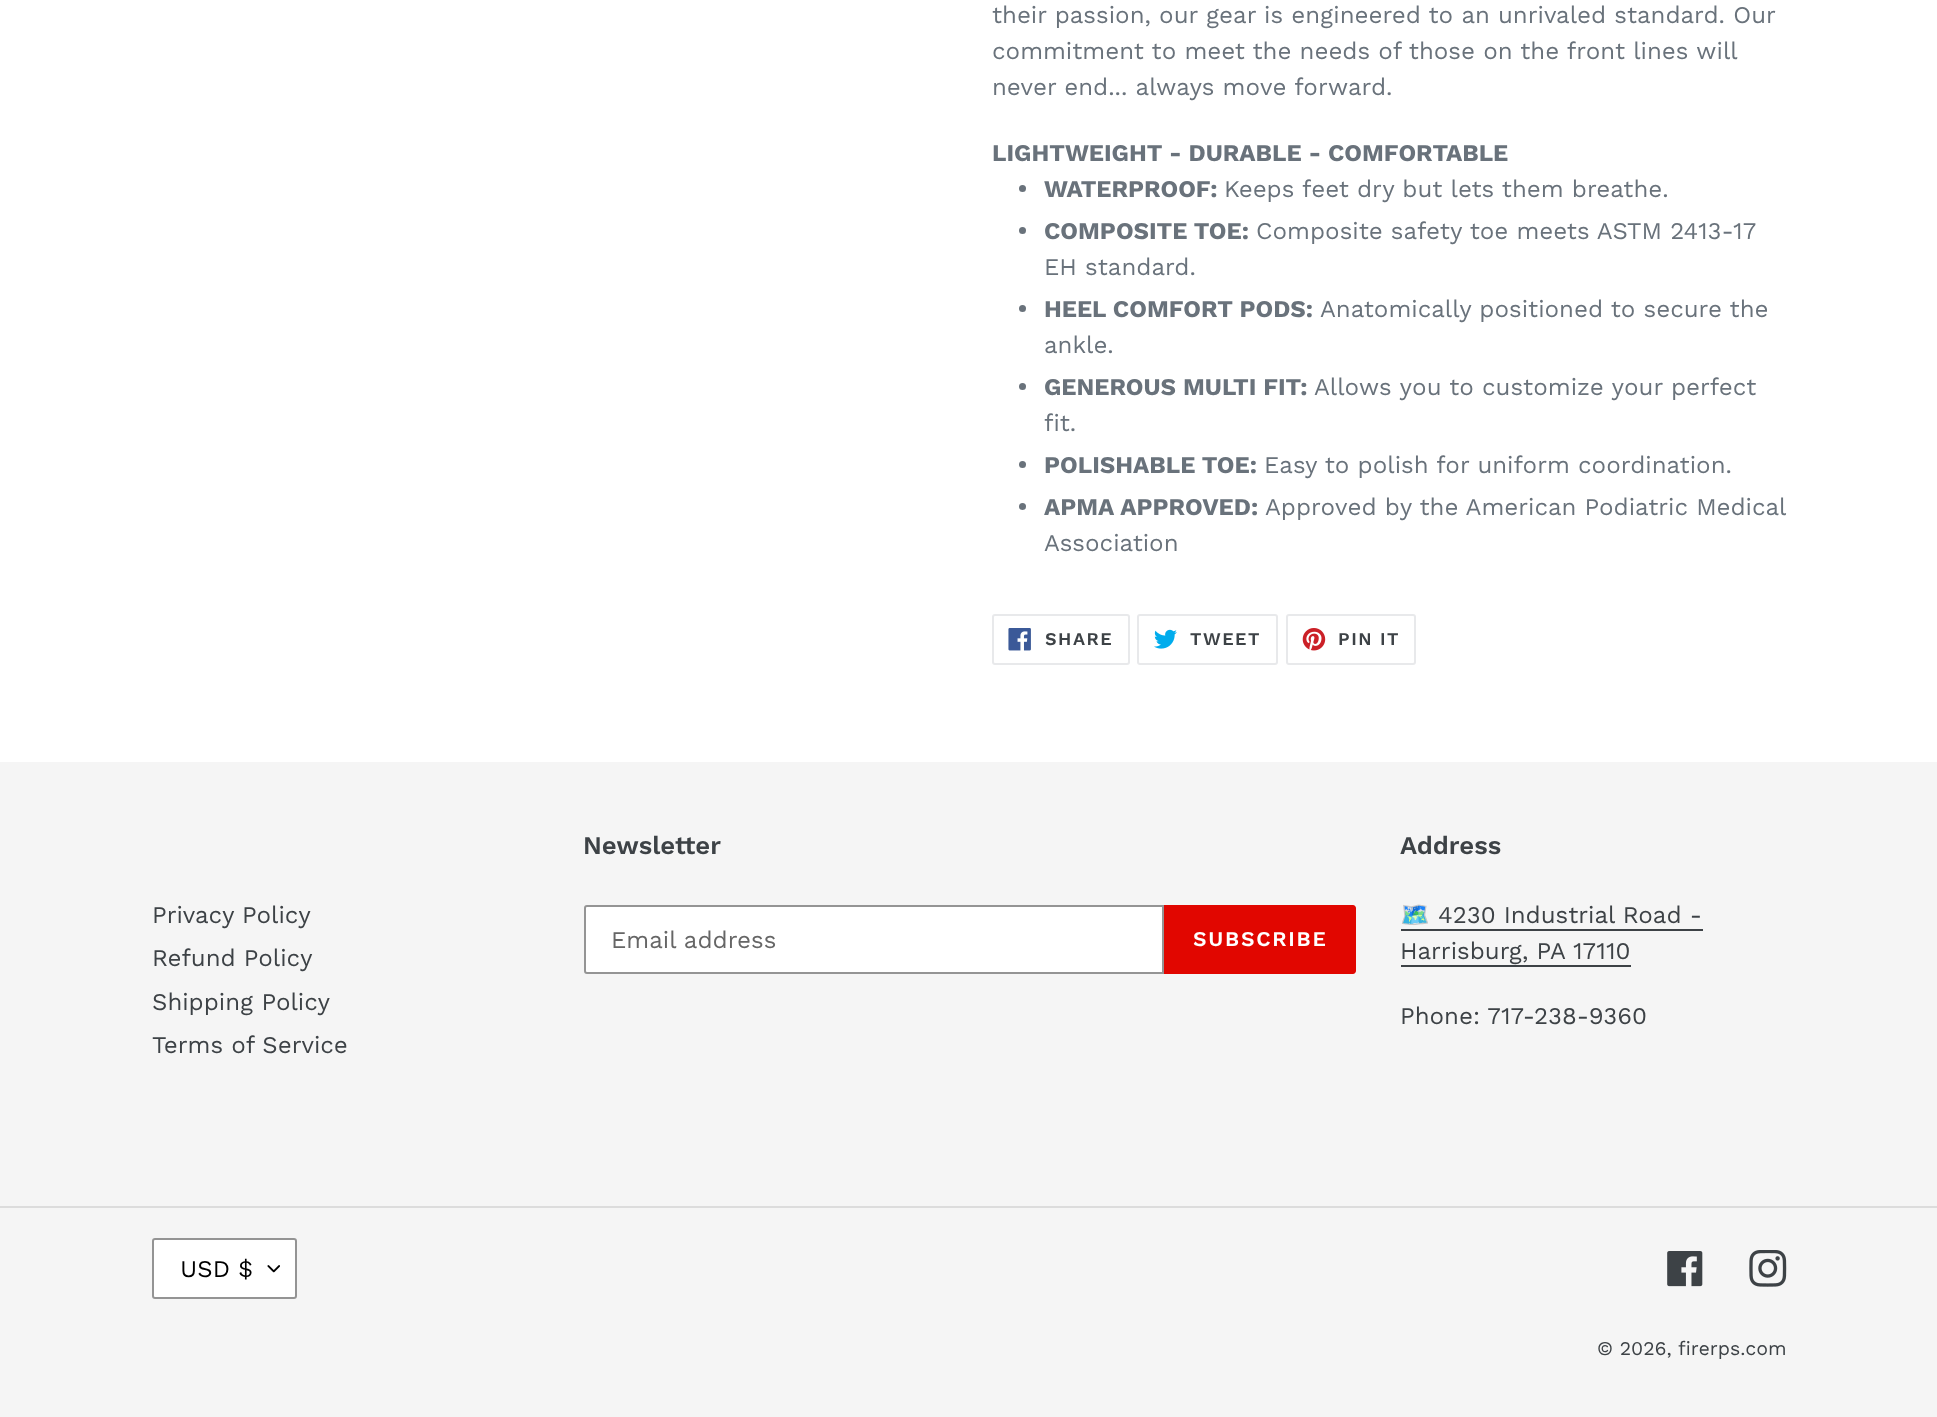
<?xml version="1.0" encoding="UTF-8"?>
<svg xmlns="http://www.w3.org/2000/svg" width="1937" height="1417">
    <rect width="100%" height="100%" fill="#FFFFFF"/>
    <text font-family="Work Sans" font-size="24" fill="#69727B">
        <tspan x="992" y="23">their passion, our gear is engineered to an unrivaled standard. Our</tspan>
        <tspan x="992" y="59">commitment to meet the needs of those on the front lines will</tspan>
        <tspan x="992" y="95">never end... always move forward.</tspan>
    </text>
    <text x="992" y="161" font-family="Work Sans" font-size="24" font-weight="700" fill="#69727B">LIGHTWEIGHT - DURABLE - COMFORTABLE</text>
    <circle cx="1022.5" cy="188.5" r="3.5" fill="#69727B"/>
    <text x="1044" y="197" font-family="Work Sans" font-size="24" font-weight="700" fill="#69727B">WATERPROOF:</text>
    <text x="1224" y="197" font-family="Work Sans" font-size="24" fill="#69727B">Keeps feet dry but lets them breathe.</text>
    <circle cx="1022.5" cy="230.5" r="3.5" fill="#69727B"/>
    <text x="1044" y="239" font-family="Work Sans" font-size="24" font-weight="700" fill="#69727B">COMPOSITE TOE:</text>
    <text x="1256" y="239" font-family="Work Sans" font-size="24" fill="#69727B">Composite safety toe meets ASTM 2413-17</text>
    <text x="1044" y="275" font-family="Work Sans" font-size="24" fill="#69727B">EH standard.</text>
    <circle cx="1022.5" cy="308.5" r="3.5" fill="#69727B"/>
    <text x="1044" y="317" font-family="Work Sans" font-size="24" font-weight="700" fill="#69727B">HEEL COMFORT PODS:</text>
    <text x="1320" y="317" font-family="Work Sans" font-size="24" fill="#69727B">Anatomically positioned to secure the</text>
    <text x="1044" y="353" font-family="Work Sans" font-size="24" fill="#69727B">ankle.</text>
    <circle cx="1022.5" cy="386.5" r="3.5" fill="#69727B"/>
    <text x="1044" y="395" font-family="Work Sans" font-size="24" font-weight="700" fill="#69727B">GENEROUS MULTI FIT:</text>
    <text x="1314" y="395" font-family="Work Sans" font-size="24" fill="#69727B">Allows you to customize your perfect</text>
    <text x="1044" y="431" font-family="Work Sans" font-size="24" fill="#69727B">fit.</text>
    <circle cx="1022.5" cy="464.5" r="3.5" fill="#69727B"/>
    <text x="1044" y="473" font-family="Work Sans" font-size="24" font-weight="700" fill="#69727B">POLISHABLE TOE:</text>
    <text x="1264" y="473" font-family="Work Sans" font-size="24" fill="#69727B">Easy to polish for uniform coordination.</text>
    <circle cx="1022.5" cy="506.5" r="3.5" fill="#69727B"/>
    <text x="1044" y="515" font-family="Work Sans" font-size="24" font-weight="700" fill="#69727B">APMA APPROVED:</text>
    <text x="1265" y="515" font-family="Work Sans" font-size="24" fill="#69727B">Approved by the American Podiatric Medical</text>
    <text x="1044" y="551" font-family="Work Sans" font-size="24" fill="#69727B">Association</text>
    <rect x="993" y="615" width="136" height="49" rx="2" fill="none" stroke="#E8E9EB" stroke-width="2"/>
    <image x="1008" y="628" width="23" height="23" href="img_01.png"/>
    <text x="1045" y="645" font-family="Work Sans" font-size="18" font-weight="600" letter-spacing="1.5" fill="#3D4246">SHARE</text>
    <rect x="1138" y="615" width="139" height="49" rx="2" fill="none" stroke="#E8E9EB" stroke-width="2"/>
    <image x="1154" y="629" width="23" height="20" href="img_02.png"/>
    <text x="1190" y="645" font-family="Work Sans" font-size="18" font-weight="600" letter-spacing="1.5" fill="#3D4246">TWEET</text>
    <rect x="1287" y="615" width="128" height="49" rx="2" fill="none" stroke="#E8E9EB" stroke-width="2"/>
    <image x="1302" y="628" width="24" height="23" href="img_03.png"/>
    <text x="1338" y="645" font-family="Work Sans" font-size="18" font-weight="600" letter-spacing="1.5" fill="#3D4246">PIN IT</text>
    <rect x="0" y="762" width="1937" height="655" fill="#F5F5F5"/>
    <text font-family="Work Sans" font-size="24" fill="#3D4246">
        <tspan x="152" y="923">Privacy Policy</tspan>
        <tspan x="152" y="966">Refund Policy</tspan>
        <tspan x="152" y="1010">Shipping Policy</tspan>
        <tspan x="152" y="1053">Terms of Service</tspan>
    </text>
    <text x="583" y="854" font-family="Work Sans" font-size="25.5" font-weight="600" fill="#3D4246">Newsletter</text>
    <path d="M 587 906 H 1163 V 973 H 587 C 586 973 585 972 585 971 V 908 C 585 907 586 906 587 906 Z" fill="#FFFFFF" stroke="#949494" stroke-width="2"/>
    <text x="611" y="948" font-family="Work Sans" font-size="24" fill="#666666">Email address</text>
    <path d="M 1164 905 H 1353 C 1354.5 905 1356 906.5 1356 908 V 971 C 1356 972.5 1354.5 974 1353 974 H 1164 Z" fill="#E10600"/>
    <text x="1193" y="946" font-family="Work Sans" font-size="21" font-weight="600" letter-spacing="1.75" fill="#FFFFFF">SUBSCRIBE</text>
    <text x="1400" y="854" font-family="Work Sans" font-size="25.5" font-weight="600" fill="#3D4246">Address</text>
    <text x="1400" y="923" font-family="Noto Color Emoji" font-size="24" fill="#3D4246">🗺️</text>
    <rect x="1401" y="929" width="302" height="2" fill="#3D4246"/>
    <text x="1438" y="923" font-family="Work Sans" font-size="24" fill="#3D4246">4230 Industrial Road -</text>
    <text x="1400" y="959" font-family="Work Sans" font-size="24" fill="#3D4246">Harrisburg, PA 17110</text>
    <rect x="1401" y="965" width="230" height="2" fill="#3D4246"/>
    <text x="1400" y="1024" font-family="Work Sans" font-size="24" fill="#3D4246">Phone: 717-238-9360</text>
    <rect x="0" y="1206" width="1937" height="2" fill="#DCDCDC"/>
    <rect x="152" y="1238" width="145" height="61" rx="3" fill="#FFFFFF"/>
    <image x="267" y="1265" width="13" height="8" href="img_04.png"/>
    <rect x="153" y="1239" width="143" height="59" rx="2" fill="none" stroke="#949494" stroke-width="2"/>
    <text x="180" y="1277" font-family="Work Sans" font-size="24" fill="#000000">USD $</text>
    <image x="1667" y="1251" width="36" height="36" href="img_05.png"/>
    <image x="1749" y="1250" width="38" height="37" href="img_06.png"/>
    <text x="1597" y="1355" font-family="Work Sans" font-size="19.5" fill="#3D4246">© 2026,</text>
    <text x="1678" y="1355" font-family="Work Sans" font-size="19.5" fill="#3D4246">firerps.com</text>
</svg>
